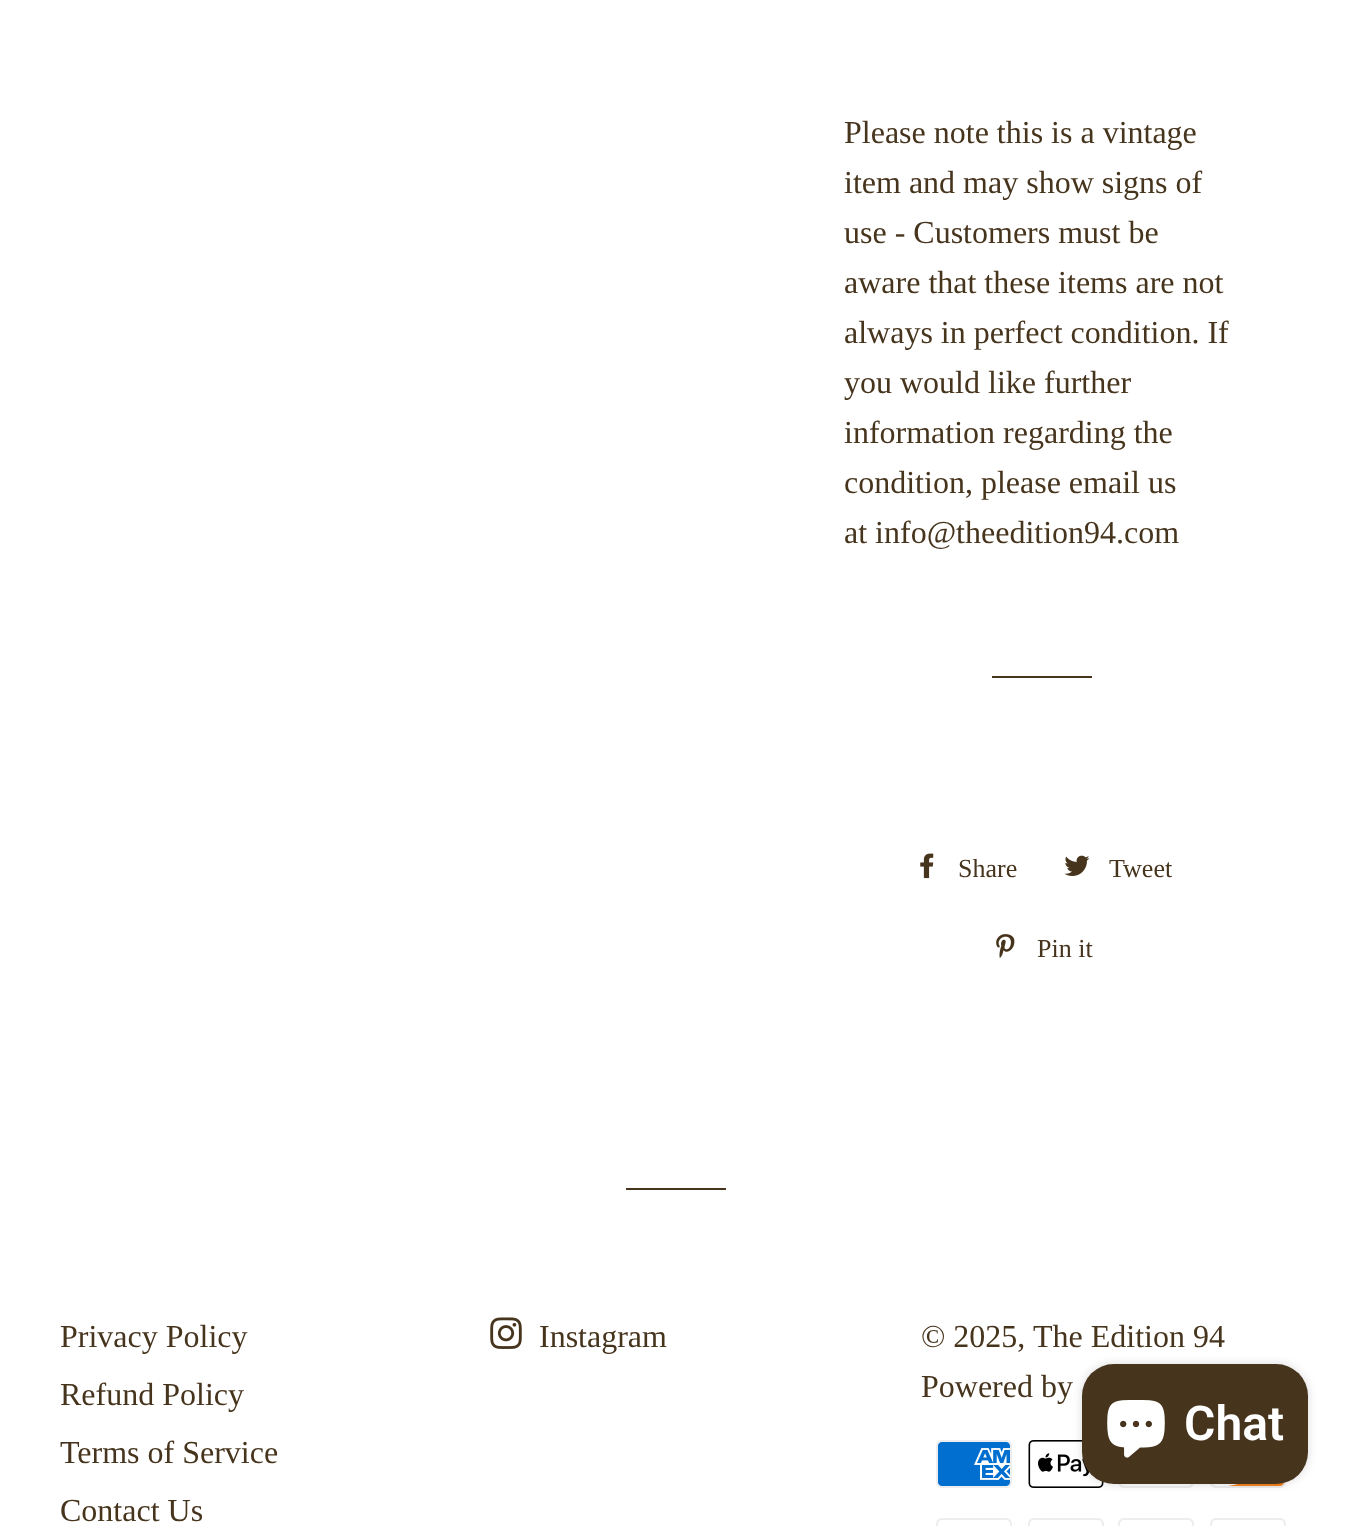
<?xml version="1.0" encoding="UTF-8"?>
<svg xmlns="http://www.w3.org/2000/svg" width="1352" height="1526">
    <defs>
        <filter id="blur1" x="-50%" y="-200%" width="200%" height="500%"><feGaussianBlur stdDeviation="5"/></filter>
    </defs>
    <rect width="100%" height="100%" fill="#FFFFFF"/>
    <text font-family="Liberation Serif" font-size="32" fill="#46341D">
        <tspan x="844" y="143">Please note this is a vintage</tspan>
        <tspan x="844" y="193">item and may show signs of</tspan>
        <tspan x="844" y="243">use - Customers must be</tspan>
        <tspan x="844" y="293">aware that these items are not</tspan>
        <tspan x="844" y="343">always in perfect condition. If</tspan>
        <tspan x="844" y="393">you would like further</tspan>
        <tspan x="844" y="443">information regarding the</tspan>
        <tspan x="844" y="493">condition, please email us</tspan>
        <tspan x="844" y="543">at info@theedition94.com</tspan>
    </text>
    <rect x="992" y="676" width="100" height="2" fill="#46341D"/>
    <image x="920" y="853" width="14" height="26" href="img_01.png"/>
    <text x="958" y="877" font-family="Liberation Serif" font-size="26" fill="#46341D">Share</text>
    <image x="1064" y="855" width="26" height="21" href="img_02.png"/>
    <text x="1109" y="877" font-family="Liberation Serif" font-size="26" fill="#46341D">Tweet</text>
    <image x="996" y="934" width="19" height="24" href="img_03.png"/>
    <text x="1037" y="957" font-family="Liberation Serif" font-size="26" fill="#46341D">Pin it</text>
    <rect x="626" y="1188" width="100" height="2" fill="#46341D"/>
    <text font-family="Liberation Serif" font-size="32" fill="#46341D">
        <tspan x="60" y="1347">Privacy Policy</tspan>
        <tspan x="60" y="1405">Refund Policy</tspan>
        <tspan x="60" y="1463">Terms of Service</tspan>
        <tspan x="60" y="1521">Contact Us</tspan>
    </text>
    <image x="490" y="1317" width="32" height="32" href="img_04.png"/>
    <text x="539" y="1347" font-family="Liberation Serif" font-size="32" fill="#46341D">Instagram</text>
    <text x="921" y="1347" font-family="Liberation Serif" font-size="32" fill="#46341D">© 2025,</text>
    <text x="1033" y="1347" font-family="Liberation Serif" font-size="32" fill="#46341D">The Edition 94</text>
    <text x="921" y="1397" font-family="Liberation Serif" font-size="32" fill="#46341D">Powered by</text>
    <image x="936" y="1440" width="76" height="48" href="img_05.png"/>
    <image x="1028" y="1440" width="76" height="48" href="img_06.png"/>
    <image x="1118" y="1484" width="76" height="4" href="img_07.png"/>
    <image x="1210" y="1482" width="76" height="6" href="img_08.png"/>
    <image x="936" y="1518" width="76" height="8" href="img_09.png"/>
    <image x="1028" y="1518" width="76" height="8" href="img_09.png"/>
    <image x="1118" y="1518" width="76" height="8" href="img_09.png"/>
    <image x="1210" y="1518" width="76" height="8" href="img_09.png"/>
    <rect x="1082" y="1364" width="226" height="120" rx="32" fill="#000000" fill-opacity="0.15" filter="url(#blur1)"/>
    <rect x="1082" y="1364" width="226" height="120" rx="32" fill="#46341D"/>
    <image x="1107" y="1400" width="58" height="58" href="img_10.png"/>
    <text x="1184" y="1440" font-family="Roboto" font-size="48" font-weight="600" fill="#FFFFFF">Chat</text>
</svg>
